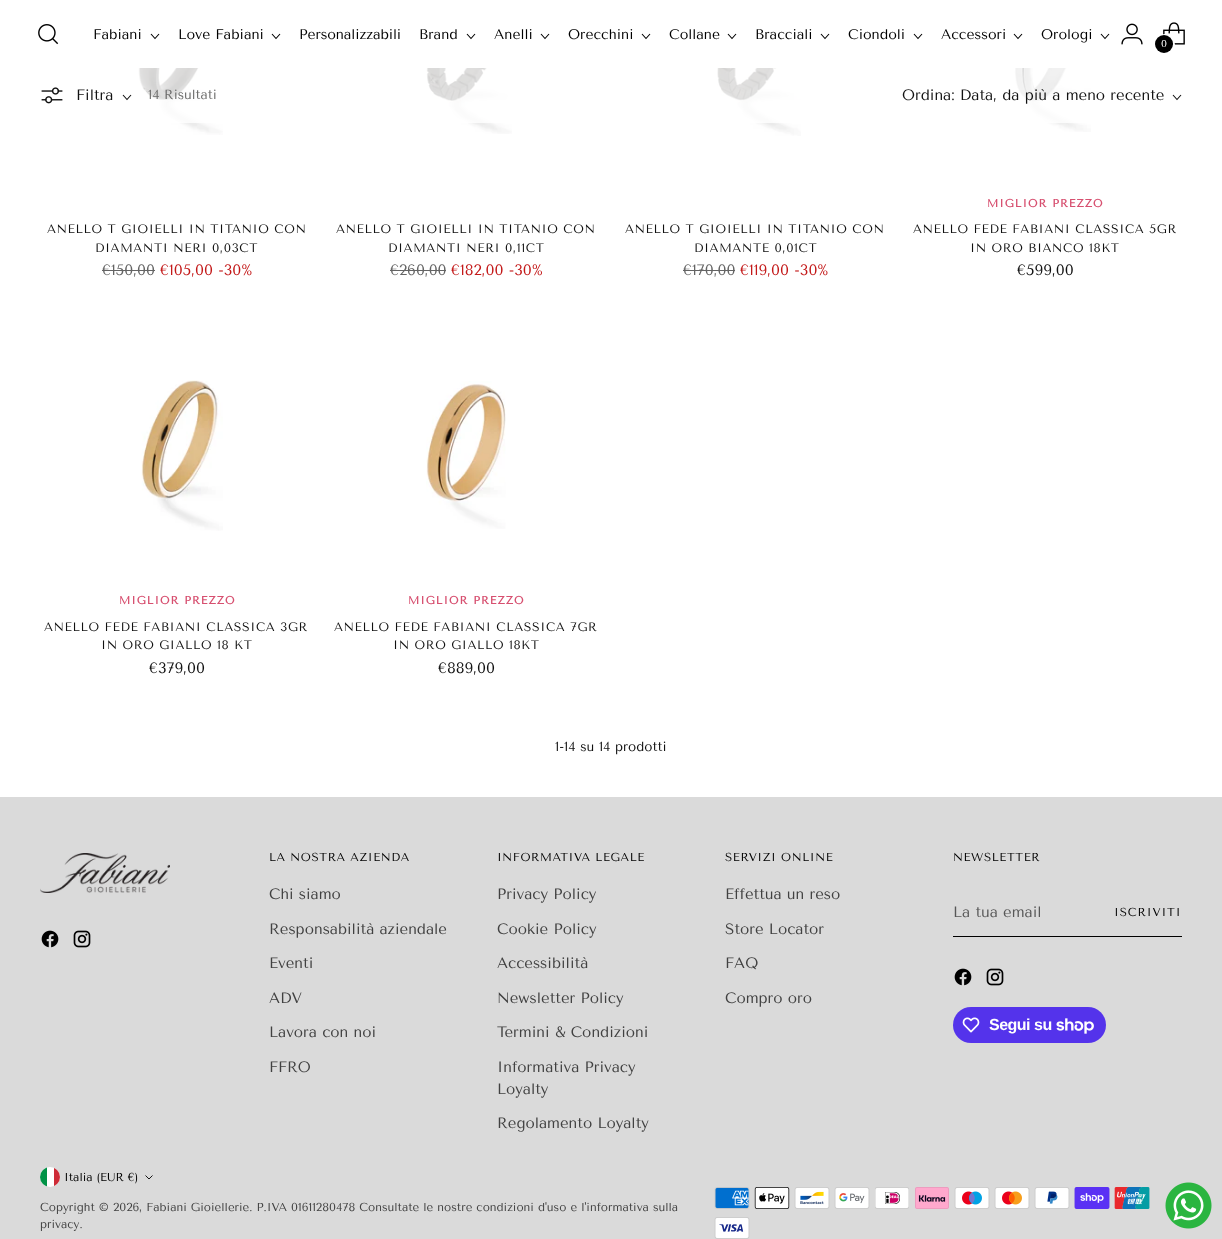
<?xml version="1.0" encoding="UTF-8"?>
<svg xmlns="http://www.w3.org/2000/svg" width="1222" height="1239">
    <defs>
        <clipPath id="clip1"><rect x="40" y="1167" width="20" height="20" rx="10"/></clipPath>
    </defs>
    <rect width="100%" height="100%" fill="#FFFFFF"/>
    <image x="38" y="24" width="21" height="21" href="img_01.png"/>
    <text x="93" y="39" font-family="Tenor Sans" font-size="14" fill="#000000">Fabiani</text>
    <path d="M 151 34 L 155 38.5 L 159 34" fill="none" stroke="#000000" stroke-width="1.1"/>
    <text x="178" y="39" font-family="Tenor Sans" font-size="14" fill="#000000">Love Fabiani</text>
    <path d="M 272 34 L 276 38.5 L 280 34" fill="none" stroke="#000000" stroke-width="1.1"/>
    <text x="299" y="39" font-family="Tenor Sans" font-size="14" letter-spacing="-0.1" fill="#000000">Personalizzabili</text>
    <text x="419" y="39" font-family="Tenor Sans" font-size="14" fill="#000000">Brand</text>
    <path d="M 467 34 L 471 38.5 L 475 34" fill="none" stroke="#000000" stroke-width="1.1"/>
    <text x="494" y="39" font-family="Tenor Sans" font-size="14" fill="#000000">Anelli</text>
    <path d="M 541 34 L 545 38.5 L 549 34" fill="none" stroke="#000000" stroke-width="1.1"/>
    <text x="568" y="39" font-family="Tenor Sans" font-size="14" fill="#000000">Orecchini</text>
    <path d="M 642 34 L 646 38.5 L 650 34" fill="none" stroke="#000000" stroke-width="1.1"/>
    <text x="669" y="39" font-family="Tenor Sans" font-size="14" fill="#000000">Collane</text>
    <path d="M 728 34 L 732 38.5 L 736 34" fill="none" stroke="#000000" stroke-width="1.1"/>
    <text x="755" y="39" font-family="Tenor Sans" font-size="14" fill="#000000">Bracciali</text>
    <path d="M 821 34 L 825 38.5 L 829 34" fill="none" stroke="#000000" stroke-width="1.1"/>
    <text x="848" y="39" font-family="Tenor Sans" font-size="14" fill="#000000">Ciondoli</text>
    <path d="M 914 34 L 918 38.5 L 922 34" fill="none" stroke="#000000" stroke-width="1.1"/>
    <text x="941" y="39" font-family="Tenor Sans" font-size="14" fill="#000000">Accessori</text>
    <path d="M 1014 34 L 1018 38.5 L 1022 34" fill="none" stroke="#000000" stroke-width="1.1"/>
    <text x="1041" y="39" font-family="Tenor Sans" font-size="14" fill="#000000">Orologi</text>
    <path d="M 1101 34 L 1105 38.5 L 1109 34" fill="none" stroke="#000000" stroke-width="1.1"/>
    <image x="1121" y="23" width="22" height="22" href="img_02.png"/>
    <image x="1163" y="22" width="22" height="23" href="img_03.png"/>
    <circle cx="1164.5" cy="44.5" r="9.5" fill="none" stroke="#FFFFFF" stroke-width="2"/>
    <circle cx="1164" cy="44" r="9" fill="#000000"/>
    <text x="1161" y="47" font-family="Tenor Sans" font-size="10" fill="#FFFFFF">0</text>
    <image x="138" y="68" width="85" height="67" href="img_05.png"/>
    <image x="425" y="68" width="87" height="66" href="img_06.png"/>
    <image x="717" y="68" width="84" height="68" href="img_07.png"/>
    <image x="1014" y="68" width="77" height="64" href="img_08.png"/>
    <rect x="138" y="68" width="946" height="55" fill="#FFFFFF" fill-opacity="0.8"/>
    <image x="41" y="87" width="22" height="17" href="img_04.png"/>
    <text x="76" y="100" font-family="Tenor Sans" font-size="15" fill="#111111">Filtra</text>
    <path d="M 123 95 L 127 99.5 L 131 95" fill="none" stroke="#111111" stroke-width="1.1"/>
    <text x="148" y="99" font-family="Tenor Sans" font-size="13.25" fill="#6B6B6A">14 Risultati</text>
    <text x="902" y="100" font-family="Tenor Sans" font-size="15" fill="#111111">Ordina: Data, da più a meno recente</text>
    <path d="M 1173 95 L 1177 99.5 L 1181 95" fill="none" stroke="#111111" stroke-width="1.1"/>
    <text x="47" y="233" font-family="Tenor Sans" font-size="12.25" letter-spacing="0.6" fill="#111111">ANELLO T GIOIELLI IN TITANIO CON</text>
    <text x="95" y="252" font-family="Tenor Sans" font-size="12.25" letter-spacing="0.6" fill="#111111">DIAMANTI NERI 0,03CT</text>
    <text x="102" y="275" font-family="Tenor Sans" font-size="15" fill="#646464">€150,00</text>
    <rect x="102" y="270" width="53" height="1" fill="#646464"/>
    <text x="160" y="275" font-family="Tenor Sans" font-size="15" fill="#C31818">€105,00 -30%</text>
    <text x="336" y="233" font-family="Tenor Sans" font-size="12.25" letter-spacing="0.6" fill="#111111">ANELLO T GIOIELLI IN TITANIO CON</text>
    <text x="388" y="252" font-family="Tenor Sans" font-size="12.25" letter-spacing="0.6" fill="#111111">DIAMANTI NERI 0,11CT</text>
    <text x="390" y="275" font-family="Tenor Sans" font-size="15" fill="#646464">€260,00</text>
    <rect x="390" y="270" width="56" height="1" fill="#646464"/>
    <text x="451" y="275" font-family="Tenor Sans" font-size="15" fill="#C31818">€182,00 -30%</text>
    <text x="625" y="233" font-family="Tenor Sans" font-size="12.25" letter-spacing="0.6" fill="#111111">ANELLO T GIOIELLI IN TITANIO CON</text>
    <text x="694" y="252" font-family="Tenor Sans" font-size="12.25" letter-spacing="0.6" fill="#111111">DIAMANTE 0,01CT</text>
    <text x="683" y="275" font-family="Tenor Sans" font-size="15" fill="#646464">€170,00</text>
    <rect x="683" y="270" width="52" height="1" fill="#646464"/>
    <text x="740" y="275" font-family="Tenor Sans" font-size="15" fill="#C31818">€119,00 -30%</text>
    <text x="987" y="207" font-family="Tenor Sans" font-size="11" font-weight="700" letter-spacing="1" fill="#D75070">MIGLIOR PREZZO</text>
    <text x="913" y="233" font-family="Tenor Sans" font-size="12.25" letter-spacing="0.6" fill="#111111">ANELLO FEDE FABIANI CLASSICA 5GR</text>
    <text x="970" y="252" font-family="Tenor Sans" font-size="12.25" letter-spacing="0.6" fill="#111111">IN ORO BIANCO 18KT</text>
    <text x="1017" y="275" font-family="Tenor Sans" font-size="15" fill="#111111">€599,00</text>
    <image x="141" y="380" width="82" height="151" href="img_09.png"/>
    <text x="119" y="604" font-family="Tenor Sans" font-size="11" font-weight="700" letter-spacing="1" fill="#D75070">MIGLIOR PREZZO</text>
    <text x="44" y="631" font-family="Tenor Sans" font-size="12.25" letter-spacing="0.6" fill="#111111">ANELLO FEDE FABIANI CLASSICA 3GR</text>
    <text x="101" y="649" font-family="Tenor Sans" font-size="12.25" letter-spacing="0.6" fill="#111111">IN ORO GIALLO 18 KT</text>
    <text x="149" y="673" font-family="Tenor Sans" font-size="15" fill="#111111">€379,00</text>
    <image x="426" y="381" width="80" height="148" href="img_10.png"/>
    <text x="408" y="604" font-family="Tenor Sans" font-size="11" font-weight="700" letter-spacing="1" fill="#D75070">MIGLIOR PREZZO</text>
    <text x="334" y="631" font-family="Tenor Sans" font-size="12.25" letter-spacing="0.6" fill="#111111">ANELLO FEDE FABIANI CLASSICA 7GR</text>
    <text x="393" y="649" font-family="Tenor Sans" font-size="12.25" letter-spacing="0.6" fill="#111111">IN ORO GIALLO 18KT</text>
    <text x="438" y="673" font-family="Tenor Sans" font-size="15" fill="#111111">€889,00</text>
    <text x="555" y="751" font-family="Tenor Sans" font-size="13.25" fill="#111111">1-14 su 14 prodotti</text>
    <rect x="0" y="797" width="1222" height="442" fill="#DADADA"/>
    <image x="40" y="853" width="130" height="40" href="img_11.png"/>
    <image x="41" y="930" width="18" height="18" href="img_12.png"/>
    <image x="73" y="930" width="18" height="18" href="img_13.png"/>
    <text x="269" y="861" font-family="Tenor Sans" font-size="11.62" letter-spacing="0.6" fill="#000000">LA NOSTRA AZIENDA</text>
    <text x="269" y="899" font-family="Tenor Sans" font-size="15" fill="#414141">Chi siamo</text>
    <text x="269" y="934" font-family="Tenor Sans" font-size="15" fill="#414141">Responsabilità aziendale</text>
    <text x="269" y="968" font-family="Tenor Sans" font-size="15" fill="#414141">Eventi</text>
    <text x="269" y="1003" font-family="Tenor Sans" font-size="15" fill="#414141">ADV</text>
    <text x="269" y="1037" font-family="Tenor Sans" font-size="15" fill="#414141">Lavora con noi</text>
    <text x="269" y="1072" font-family="Tenor Sans" font-size="15" fill="#414141">FFRO</text>
    <text x="497" y="861" font-family="Tenor Sans" font-size="11.62" letter-spacing="0.6" fill="#000000">INFORMATIVA LEGALE</text>
    <text x="497" y="899" font-family="Tenor Sans" font-size="15" fill="#414141">Privacy Policy</text>
    <text x="497" y="934" font-family="Tenor Sans" font-size="15" fill="#414141">Cookie Policy</text>
    <text x="497" y="968" font-family="Tenor Sans" font-size="15" fill="#414141">Accessibilità</text>
    <text x="497" y="1003" font-family="Tenor Sans" font-size="15" fill="#414141">Newsletter Policy</text>
    <text x="497" y="1037" font-family="Tenor Sans" font-size="15" fill="#414141">Termini &amp; Condizioni</text>
    <text font-family="Tenor Sans" font-size="15" fill="#414141">
        <tspan x="497" y="1072">Informativa Privacy</tspan>
        <tspan x="497" y="1094">Loyalty</tspan>
    </text>
    <text x="497" y="1128" font-family="Tenor Sans" font-size="15" fill="#414141">Regolamento Loyalty</text>
    <text x="725" y="861" font-family="Tenor Sans" font-size="11.62" letter-spacing="0.6" fill="#000000">SERVIZI ONLINE</text>
    <text x="725" y="899" font-family="Tenor Sans" font-size="15" fill="#414141">Effettua un reso</text>
    <text x="725" y="934" font-family="Tenor Sans" font-size="15" fill="#414141">Store Locator</text>
    <text x="725" y="968" font-family="Tenor Sans" font-size="15" fill="#414141">FAQ</text>
    <text x="725" y="1003" font-family="Tenor Sans" font-size="15" fill="#414141">Compro oro</text>
    <text x="953" y="861" font-family="Tenor Sans" font-size="11.62" letter-spacing="0.6" fill="#000000">NEWSLETTER</text>
    <rect x="953" y="936" width="229" height="1" fill="#000000"/>
    <text x="953" y="917" font-family="Tenor Sans" font-size="15" fill="#575757">La tua email</text>
    <text x="1114" y="916" font-family="Tenor Sans" font-size="11.62" letter-spacing="0.9" fill="#000000">ISCRIVITI</text>
    <image x="954" y="968" width="18" height="18" href="img_12.png"/>
    <image x="986" y="968" width="18" height="18" href="img_13.png"/>
    <rect x="953" y="1007" width="153" height="36" rx="18" fill="#5433EB"/>
    <image x="962" y="1017" width="18" height="16" href="img_14.png"/>
    <text x="989" y="1030" font-family="Liberation Sans" font-size="16" font-weight="700" letter-spacing="-0.5" fill="#FFFFFF">Segui su</text>
    <image x="1056" y="1018" width="38" height="16" href="img_15.png"/>
    <circle cx="50" cy="1177" r="10" fill="#FFFFFF"/>
    <g clip-path="url(#clip1)">
        <rect x="40" y="1167" width="7" height="20" fill="#009246"/>
        <rect x="54" y="1167" width="6" height="20" fill="#CE2B37"/>
    </g>
    <text x="64" y="1181" font-family="Tenor Sans" font-size="11.62" fill="#000000">Italia (EUR €)</text>
    <path d="M 145.5 1175.5 L 149 1179 L 152.5 1175.5" fill="none" stroke="#000000" stroke-width="0.9"/>
    <text font-family="Tenor Sans" font-size="11.62" fill="#414141">
        <tspan x="40" y="1211">Copyright © 2026, Fabiani Gioiellerie. P.IVA 01611280478 Consultate le nostre condizioni d'uso e l'informativa sulla</tspan>
        <tspan x="40" y="1228">privacy.</tspan>
    </text>
    <image x="714" y="1187" width="36" height="22" href="img_16.png"/>
    <image x="754" y="1187" width="36" height="22" href="img_17.png"/>
    <image x="794" y="1187" width="36" height="22" href="img_18.png"/>
    <image x="834" y="1187" width="36" height="22" href="img_19.png"/>
    <image x="875" y="1187" width="34" height="22" href="img_20.png"/>
    <image x="915" y="1187" width="34" height="22" href="img_21.png"/>
    <image x="954" y="1187" width="36" height="22" href="img_22.png"/>
    <image x="994" y="1187" width="36" height="22" href="img_23.png"/>
    <image x="1034" y="1187" width="36" height="22" href="img_24.png"/>
    <image x="1074" y="1187" width="36" height="22" href="img_25.png"/>
    <image x="1114" y="1187" width="36" height="22" href="img_26.png"/>
    <image x="714" y="1217" width="36" height="22" href="img_27.png"/>
    <image x="1165" y="1182" width="47" height="47" href="img_28.png"/>
</svg>
